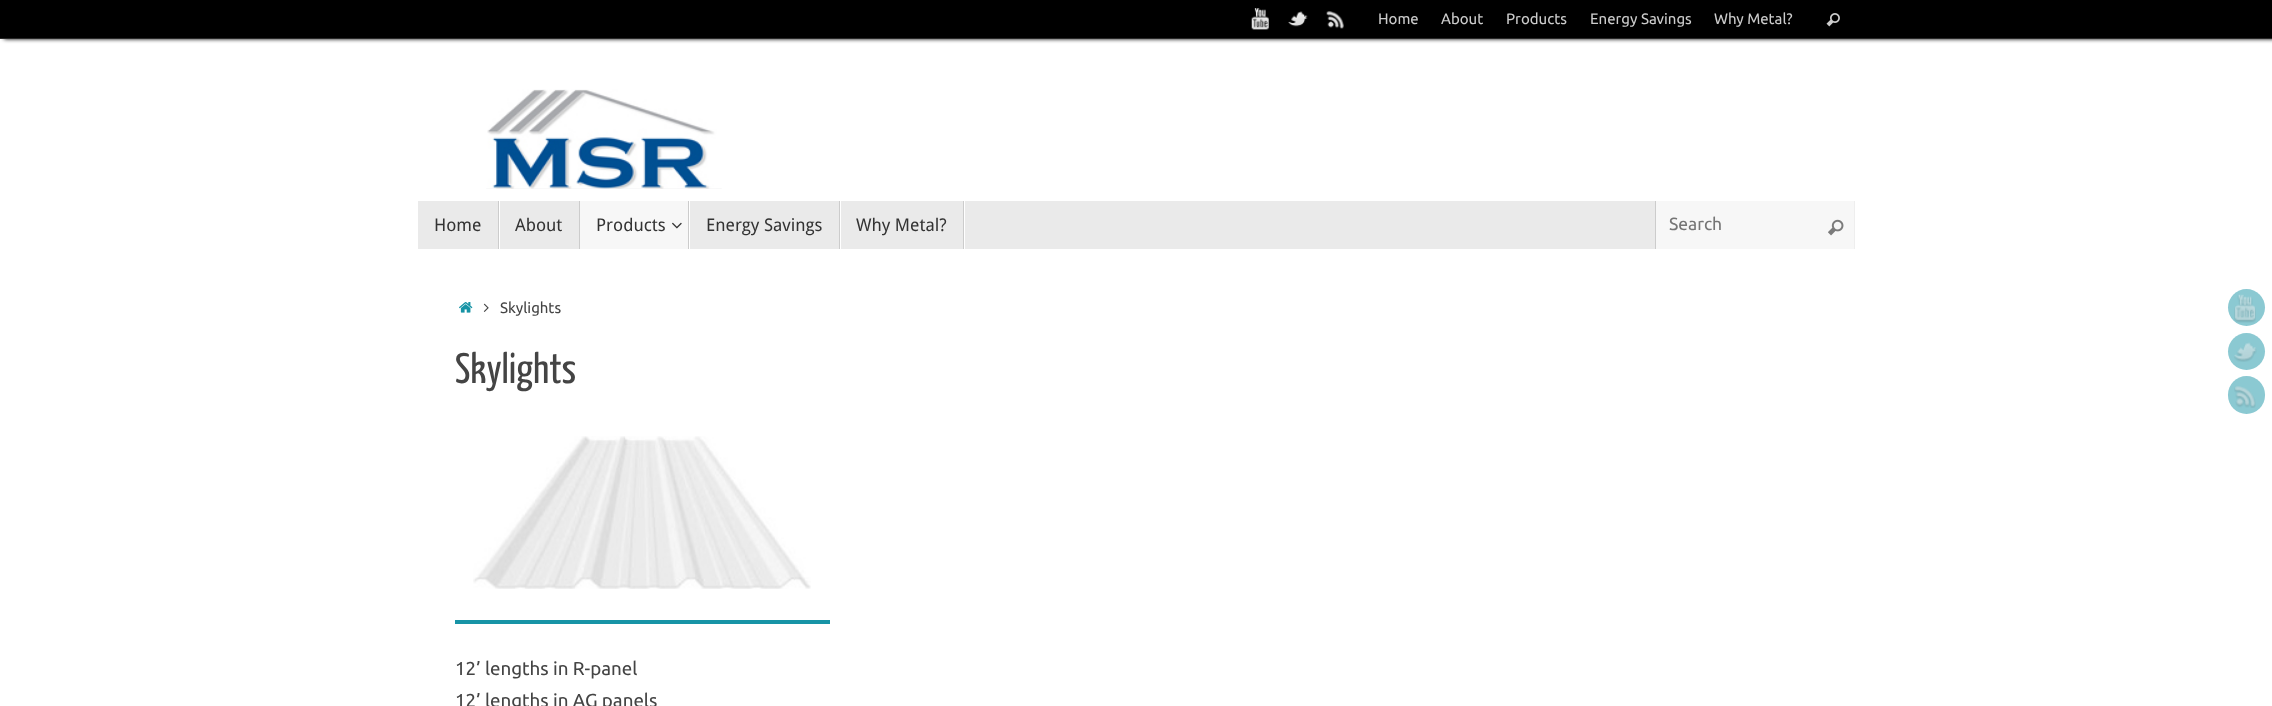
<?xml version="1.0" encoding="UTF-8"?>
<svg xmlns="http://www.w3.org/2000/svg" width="2272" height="706">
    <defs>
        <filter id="blur1" x="-50%" y="-200%" width="200%" height="500%"><feGaussianBlur stdDeviation="2"/></filter>
    </defs>
    <rect width="100%" height="100%" fill="#FFFFFF"/>
    <rect x="4" y="0" width="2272" height="39" fill="#000000" filter="url(#blur1)"/>
    <rect x="0" y="0" width="2272" height="38" fill="#000000"/>
    <rect x="0" y="38" width="2272" height="1" fill="#282828"/>
    <image x="1251" y="8" width="18" height="22" href="img_01.png"/>
    <image x="1288" y="11" width="20" height="16" href="img_02.png"/>
    <image x="1326" y="11" width="18" height="18" href="img_03.png"/>
    <text x="1378" y="24" font-family="Ubuntu" font-size="15" fill="#CCCCCC">Home</text>
    <text x="1441" y="24" font-family="Ubuntu" font-size="15" fill="#CCCCCC">About</text>
    <text x="1506" y="24" font-family="Ubuntu" font-size="15" fill="#CCCCCC">Products</text>
    <text x="1590" y="24" font-family="Ubuntu" font-size="15" fill="#CCCCCC">Energy Savings</text>
    <text x="1714" y="24" font-family="Ubuntu" font-size="15" fill="#CCCCCC">Why Metal?</text>
    <image x="1826" y="13" width="14" height="14" href="img_04.png"/>
    <image x="486" y="89" width="236" height="100" href="img_05.png"/>
    <rect x="418" y="201" width="1237" height="48" fill="#EAEAEA"/>
    <path d="M 419 201 H 499 V 249 H 419 H 500 V 201 Z" fill="#FFFFFF"/>
    <rect x="498" y="201" width="1" height="48" fill="#CCCCCC"/>
    <text x="434" y="231" font-family="Droid Sans" font-size="17.5" fill="#333333">Home</text>
    <rect x="579" y="201" width="1" height="48" fill="#CCCCCC"/>
    <text x="515" y="231" font-family="Droid Sans" font-size="17.5" fill="#333333">About</text>
    <rect x="580" y="201" width="108" height="48" fill="#F7F7F7"/>
    <path d="M 581 201 H 689 V 249 H 581 H 690 V 201 Z" fill="#FFFFFF"/>
    <rect x="688" y="201" width="1" height="48" fill="#CCCCCC"/>
    <text x="596" y="231" font-family="Droid Sans" font-size="17.5" fill="#333333">Products</text>
    <image x="672" y="222" width="10" height="7" href="img_06.png"/>
    <path d="M 690 201 H 840 V 249 H 690 H 841 V 201 Z" fill="#FFFFFF"/>
    <rect x="839" y="201" width="1" height="48" fill="#CCCCCC"/>
    <text x="706" y="231" font-family="Droid Sans" font-size="17.5" fill="#333333">Energy Savings</text>
    <path d="M 841 201 H 964 V 249 H 841 H 965 V 201 Z" fill="#FFFFFF"/>
    <rect x="963" y="201" width="1" height="48" fill="#CCCCCC"/>
    <text x="856" y="231" font-family="Droid Sans" font-size="17.5" fill="#333333">Why Metal?</text>
    <rect x="1656" y="201" width="198" height="48" fill="#F7F7F7"/>
    <rect x="1854" y="201" width="1" height="48" fill="#EEEEEE"/>
    <rect x="1655" y="201" width="1" height="48" fill="#CCCCCC"/>
    <text x="1669" y="230" font-family="Ubuntu" font-size="17.5" fill="#757575">Search</text>
    <image x="1828" y="219" width="16" height="17" href="img_07.png"/>
    <image x="459" y="302" width="14" height="11" href="img_08.png"/>
    <image x="483" y="303" width="6" height="9" href="img_09.png"/>
    <text x="500" y="313" font-family="Ubuntu" font-size="15" fill="#444444">Skylights</text>
    <text x="455" y="383" font-family="Yanone Kaffeesatz" font-size="42.5" fill="#444444">Skylights</text>
    <image x="473" y="436" width="338" height="153" href="img_10.png"/>
    <rect x="455" y="620" width="375" height="4" fill="#1894A6"/>
    <text font-family="Ubuntu" font-size="18.75" fill="#444444">
        <tspan x="455" y="675">12’ lengths in R-panel</tspan>
        <tspan x="455" y="707">12’ lengths in AG panels</tspan>
    </text>
    <circle cx="2246.5" cy="307.5" r="18.5" fill="#8BC9D2"/>
    <image x="2234" y="294" width="22" height="29" href="img_11.png"/>
    <circle cx="2246.5" cy="351.5" r="18.5" fill="#8BC9D2"/>
    <image x="2234" y="342" width="23" height="20" href="img_12.png"/>
    <rect x="2228" y="376" width="37" height="38" rx="18.5" fill="#8BC9D2"/>
    <image x="2234" y="386" width="22" height="22" href="img_13.png"/>
</svg>
